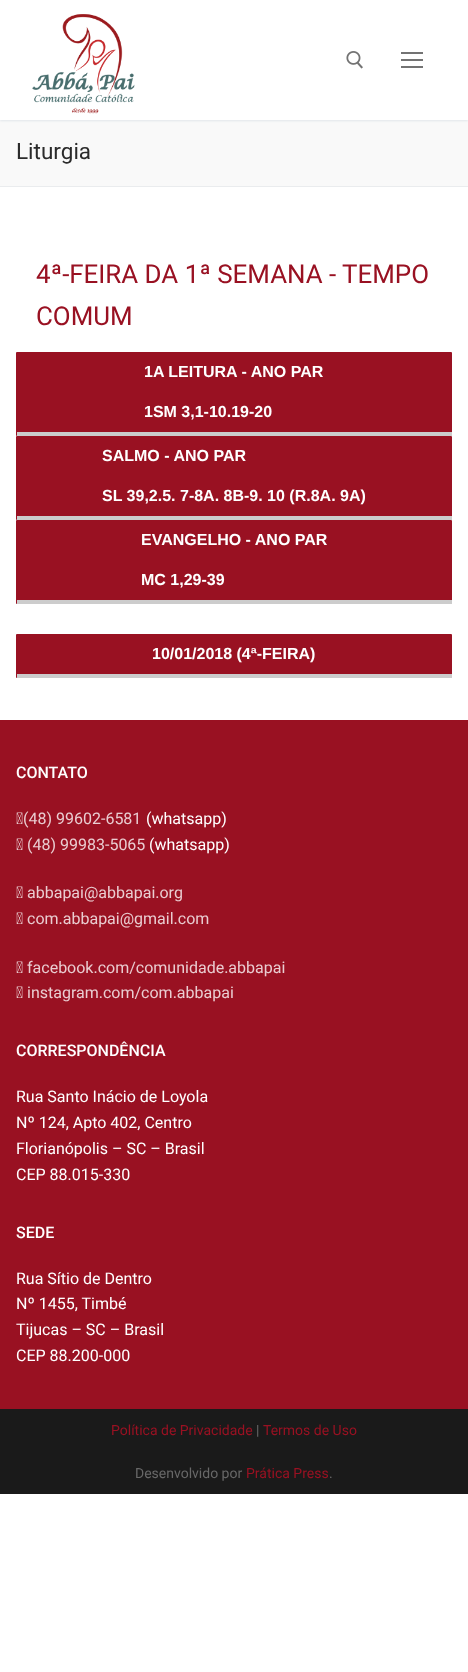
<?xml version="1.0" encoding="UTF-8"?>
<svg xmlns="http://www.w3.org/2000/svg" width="468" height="1672">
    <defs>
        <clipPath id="clip1"><rect x="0" y="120" width="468" height="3"/></clipPath>
        <filter id="blur1" x="-50%" y="-200%" width="200%" height="500%"><feGaussianBlur stdDeviation="1"/></filter>
    </defs>
    <rect width="100%" height="100%" fill="#FFFFFF"/>
    <rect x="0" y="120" width="468" height="66" fill="#F9F9F9"/>
    <g clip-path="url(#clip1)">
        <rect x="0" y="1" width="468" height="120" fill="#E1E5EA" filter="url(#blur1)"/>
    </g>
    <image x="32" y="14" width="103" height="100" href="img_01.png"/>
    <image x="346" y="51" width="17" height="18" href="img_02.png"/>
    <rect x="401" y="59" width="22" height="2" fill="#737373"/>
    <rect x="401" y="52" width="22" height="2" fill="#737373"/>
    <rect x="401" y="66" width="22" height="2" fill="#737373"/>
    <rect x="0" y="186" width="468" height="1" fill="#EAECEE"/>
    <text x="16" y="159" font-family="Roboto" font-size="22.5" fill="#2B2B2B">Liturgia</text>
    <text font-family="Roboto" font-size="25.9" fill="#991122">
        <tspan x="36" y="283">4ª-FEIRA DA 1ª SEMANA - TEMPO</tspan>
        <tspan x="36" y="325">COMUM</tspan>
    </text>
    <rect x="16" y="352" width="436" height="84" rx="1" fill="#991122"/>
    <rect x="17" y="432" width="435" height="4" fill="#CCCCCC"/>
    <text x="144" y="377" font-family="Liberation Sans" font-size="16" font-weight="700" fill="#FFFFFF">1A LEITURA - ANO PAR</text>
    <text x="144" y="417" font-family="Liberation Sans" font-size="16" font-weight="700" fill="#FFFFFF">1SM 3,1-10.19-20</text>
    <rect x="16" y="436" width="436" height="84" rx="1" fill="#991122"/>
    <rect x="17" y="516" width="435" height="4" fill="#CCCCCC"/>
    <text x="102" y="461" font-family="Liberation Sans" font-size="16" font-weight="700" fill="#FFFFFF">SALMO - ANO PAR</text>
    <text x="102" y="501" font-family="Liberation Sans" font-size="16" font-weight="700" fill="#FFFFFF">SL 39,2.5. 7-8A. 8B-9. 10 (R.8A. 9A)</text>
    <rect x="16" y="520" width="436" height="84" rx="1" fill="#991122"/>
    <rect x="17" y="600" width="435" height="4" fill="#CCCCCC"/>
    <text x="141" y="545" font-family="Liberation Sans" font-size="16" font-weight="700" fill="#FFFFFF">EVANGELHO - ANO PAR</text>
    <text x="141" y="585" font-family="Liberation Sans" font-size="16" font-weight="700" fill="#FFFFFF">MC 1,29-39</text>
    <rect x="16" y="634" width="436" height="44" rx="1" fill="#991122"/>
    <rect x="17" y="674" width="435" height="4" fill="#CCCCCC"/>
    <text x="152" y="659" font-family="Liberation Sans" font-size="16" font-weight="700" fill="#FFFFFF">10/01/2018 (4ª-FEIRA)</text>
    <rect x="0" y="720" width="468" height="689" fill="#991122"/>
    <text x="16" y="778" font-family="Roboto" font-size="16" font-weight="500" fill="#FFFFFF">CONTATO</text>
    <image x="16" y="812" width="7" height="12" href="img_03.png"/>
    <text x="23" y="824" font-family="Roboto" font-size="16" fill="#EACDD1">(48) 99602-6581</text>
    <text x="146" y="824" font-family="Roboto" font-size="16" fill="#FFFFFF">(whatsapp)</text>
    <image x="16" y="838" width="7" height="12" href="img_03.png"/>
    <text x="27" y="850" font-family="Roboto" font-size="16" fill="#EACDD1">(48) 99983-5065</text>
    <text x="149" y="850" font-family="Roboto" font-size="16" fill="#FFFFFF">(whatsapp)</text>
    <image x="16" y="886" width="7" height="12" href="img_03.png"/>
    <text x="27" y="898" font-family="Roboto" font-size="16" fill="#EACDD1">abbapai@abbapai.org</text>
    <image x="16" y="912" width="7" height="12" href="img_03.png"/>
    <text x="27" y="924" font-family="Roboto" font-size="16" fill="#EACDD1">com.abbapai@gmail.com</text>
    <image x="16" y="961" width="7" height="12" href="img_03.png"/>
    <text x="27" y="973" font-family="Roboto" font-size="16" fill="#EACDD1">facebook.com/comunidade.abbapai</text>
    <image x="16" y="986" width="7" height="12" href="img_03.png"/>
    <text x="27" y="998" font-family="Roboto" font-size="16" fill="#EACDD1">instagram.com/com.abbapai</text>
    <text x="16" y="1056" font-family="Roboto" font-size="16" font-weight="500" fill="#FFFFFF">CORRESPONDÊNCIA</text>
    <text font-family="Roboto" font-size="16" fill="#FFFFFF">
        <tspan x="16" y="1102">Rua Santo Inácio de Loyola</tspan>
        <tspan x="16" y="1128">Nº 124, Apto 402, Centro</tspan>
        <tspan x="16" y="1154">Florianópolis – SC – Brasil</tspan>
        <tspan x="16" y="1180">CEP 88.015-330</tspan>
    </text>
    <text x="16" y="1238" font-family="Roboto" font-size="16" font-weight="500" fill="#FFFFFF">SEDE</text>
    <text font-family="Roboto" font-size="16" fill="#FFFFFF">
        <tspan x="16" y="1284">Rua Sítio de Dentro</tspan>
        <tspan x="16" y="1309">Nº 1455, Timbé</tspan>
        <tspan x="16" y="1335">Tijucas – SC – Brasil</tspan>
        <tspan x="16" y="1361">CEP 88.200-000</tspan>
    </text>
    <rect x="0" y="1409" width="468" height="85" fill="#1A1A1A"/>
    <text x="111" y="1435" font-family="Roboto" font-size="14" fill="#991122">Política de Privacidade</text>
    <text x="256" y="1435" font-family="Roboto" font-size="14" fill="#686868">|</text>
    <text x="263" y="1435" font-family="Roboto" font-size="14" fill="#991122">Termos de Uso</text>
    <text x="135" y="1478" font-family="Roboto" font-size="14" fill="#686868">Desenvolvido por</text>
    <text x="246" y="1478" font-family="Roboto" font-size="14" fill="#991122">Prática Press</text>
    <text x="329" y="1478" font-family="Roboto" font-size="14" fill="#686868">.</text>
</svg>
